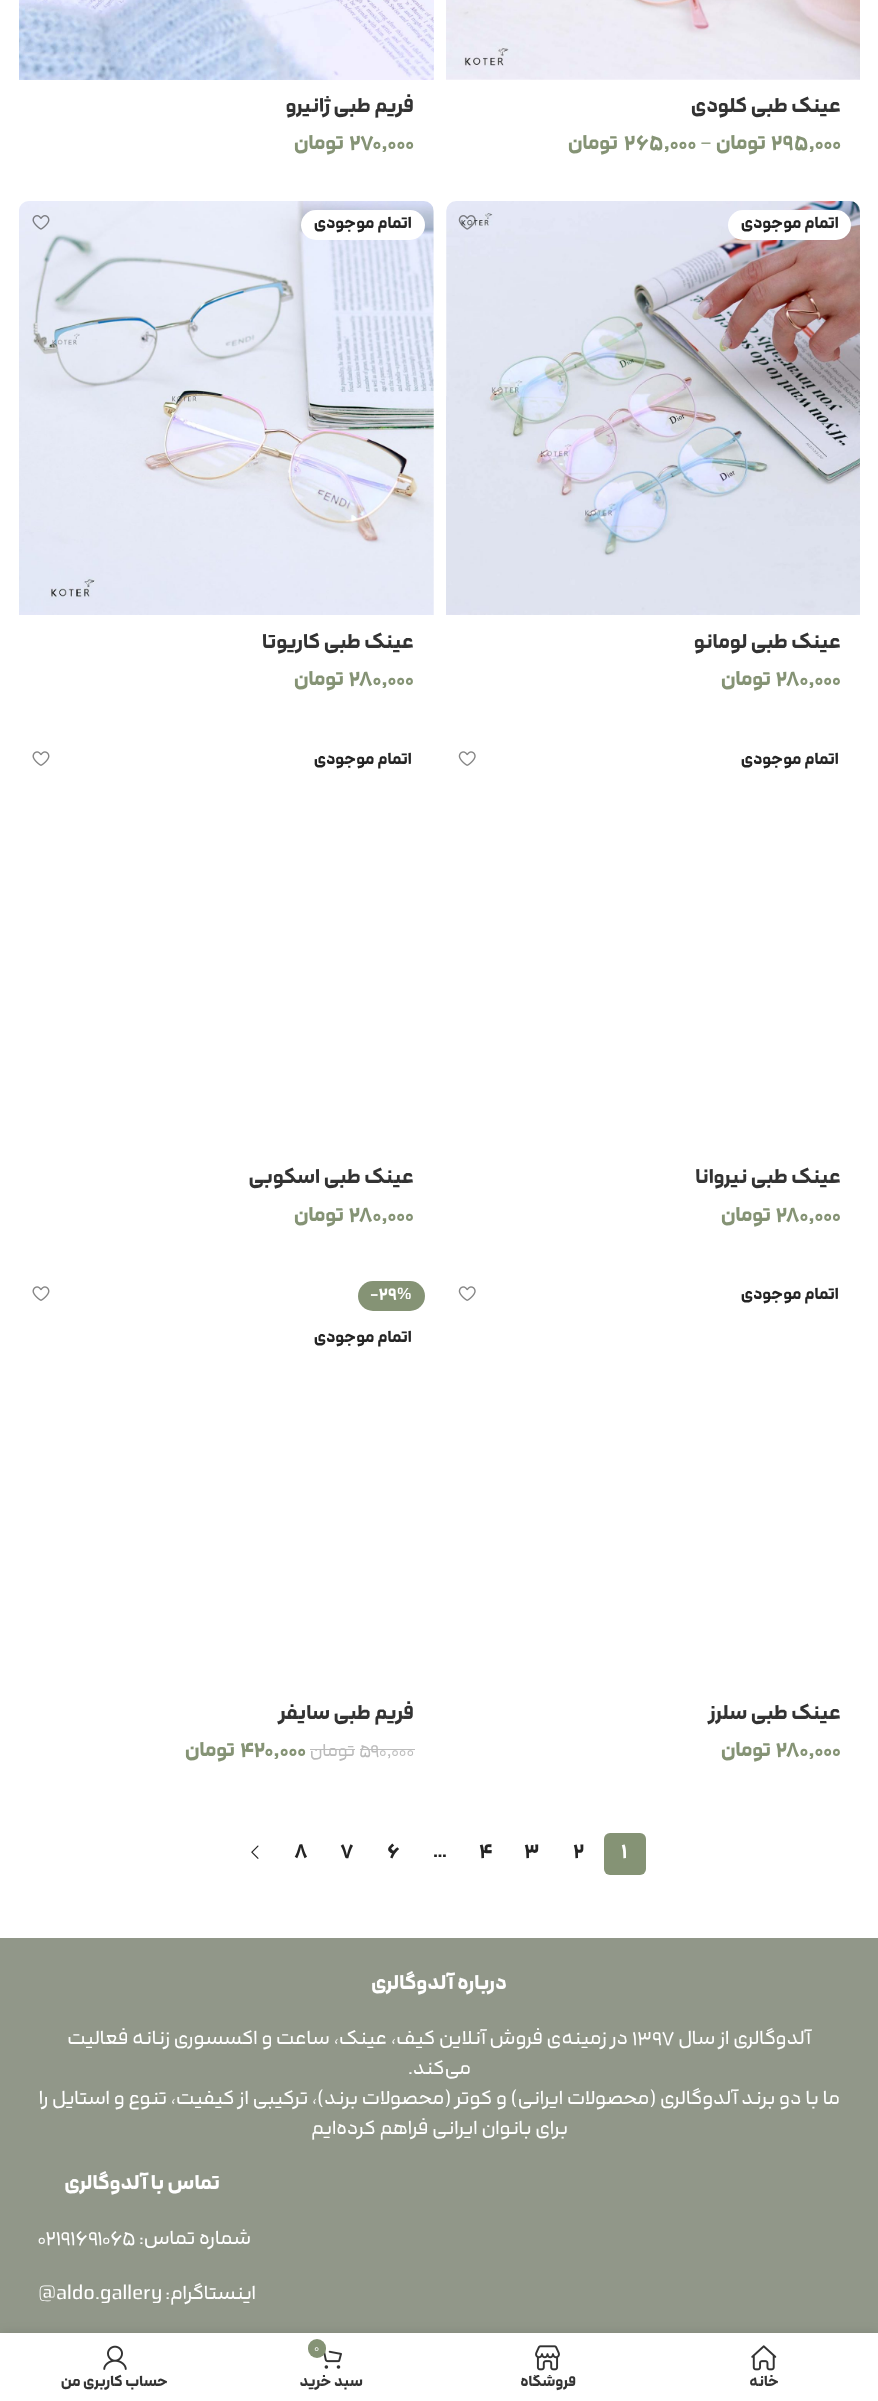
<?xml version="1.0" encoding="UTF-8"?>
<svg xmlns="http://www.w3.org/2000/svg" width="878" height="2401">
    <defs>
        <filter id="blur1" x="-50%" y="-200%" width="200%" height="500%"><feGaussianBlur stdDeviation="5.5"/></filter>
        <clipPath id="clip1"><rect x="453" y="2375" width="191" height="16"/></clipPath>
    </defs>
    <rect width="100%" height="100%" fill="#FFFFFF"/>
    <image x="446" y="0" width="414" height="80" href="img_01.png"/>
    <text x="841" y="112" font-family="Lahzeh" font-size="18.75" font-weight="600" direction="rtl" fill="#333333">عینک طبی کلودی</text>
    <text x="771" y="149" font-family="Lahzeh" font-size="18.75" font-weight="600" fill="#859375">۲۹۵,۰۰۰</text>
    <text x="766" y="149" font-family="Lahzeh" font-size="18.75" font-weight="600" direction="rtl" fill="#859375">تومان</text>
    <text x="700" y="149" font-family="Lahzeh" font-size="18.75" fill="#859375">–</text>
    <text x="624" y="149" font-family="Lahzeh" font-size="18.75" font-weight="600" fill="#859375">۲۶۵,۰۰۰</text>
    <text x="618" y="149" font-family="Lahzeh" font-size="18.75" font-weight="600" direction="rtl" fill="#859375">تومان</text>
    <image x="19" y="0" width="415" height="80" href="img_02.png"/>
    <text x="414" y="112" font-family="Lahzeh" font-size="18.75" font-weight="600" direction="rtl" fill="#333333">فریم طبی ژانیرو</text>
    <text x="349" y="149" font-family="Lahzeh" font-size="18.75" font-weight="600" fill="#859375">۲۷۰,۰۰۰</text>
    <text x="344" y="149" font-family="Lahzeh" font-size="18.75" font-weight="600" direction="rtl" fill="#859375">تومان</text>
    <image x="446" y="201" width="414" height="414" href="img_03.png"/>
    <rect x="728" y="210" width="123" height="30" rx="15" fill="#FFFFFF"/>
    <text x="839" y="228" font-family="Lahzeh" font-size="15" font-weight="600" direction="rtl" fill="#242424">اتمام موجودی</text>
    <image x="458" y="215" width="18" height="15" href="img_04.png"/>
    <text x="841" y="648" font-family="Lahzeh" font-size="18.75" font-weight="600" direction="rtl" fill="#333333">عینک طبی لومانو</text>
    <text x="776" y="685" font-family="Lahzeh" font-size="18.75" font-weight="600" fill="#859375">۲۸۰,۰۰۰</text>
    <text x="771" y="685" font-family="Lahzeh" font-size="18.75" font-weight="600" direction="rtl" fill="#859375">تومان</text>
    <image x="19" y="201" width="415" height="414" href="img_05.png"/>
    <rect x="301" y="210" width="124" height="30" rx="15" fill="#FFFFFF"/>
    <text x="412" y="228" font-family="Lahzeh" font-size="15" font-weight="600" direction="rtl" fill="#242424">اتمام موجودی</text>
    <image x="32" y="215" width="18" height="15" href="img_06.png"/>
    <text x="414" y="648" font-family="Lahzeh" font-size="18.75" font-weight="600" direction="rtl" fill="#333333">عینک طبی کاریوتا</text>
    <text x="349" y="685" font-family="Lahzeh" font-size="18.75" font-weight="600" fill="#859375">۲۸۰,۰۰۰</text>
    <text x="344" y="685" font-family="Lahzeh" font-size="18.75" font-weight="600" direction="rtl" fill="#859375">تومان</text>
    <text x="839" y="764" font-family="Lahzeh" font-size="15" font-weight="600" direction="rtl" fill="#242424">اتمام موجودی</text>
    <image x="458" y="751" width="18" height="15" href="img_07.png"/>
    <text x="841" y="1183" font-family="Lahzeh" font-size="18.75" font-weight="600" direction="rtl" fill="#333333">عینک طبی نیروانا</text>
    <text x="776" y="1221" font-family="Lahzeh" font-size="18.75" font-weight="600" fill="#859375">۲۸۰,۰۰۰</text>
    <text x="771" y="1221" font-family="Lahzeh" font-size="18.75" font-weight="600" direction="rtl" fill="#859375">تومان</text>
    <text x="412" y="764" font-family="Lahzeh" font-size="15" font-weight="600" direction="rtl" fill="#242424">اتمام موجودی</text>
    <image x="32" y="751" width="18" height="15" href="img_08.png"/>
    <text x="414" y="1183" font-family="Lahzeh" font-size="18.75" font-weight="600" direction="rtl" fill="#333333">عینک طبی اسکوبی</text>
    <text x="349" y="1221" font-family="Lahzeh" font-size="18.75" font-weight="600" fill="#859375">۲۸۰,۰۰۰</text>
    <text x="344" y="1221" font-family="Lahzeh" font-size="18.75" font-weight="600" direction="rtl" fill="#859375">تومان</text>
    <text x="839" y="1299" font-family="Lahzeh" font-size="15" font-weight="600" direction="rtl" fill="#242424">اتمام موجودی</text>
    <image x="458" y="1286" width="18" height="15" href="img_07.png"/>
    <text x="841" y="1719" font-family="Lahzeh" font-size="18.75" font-weight="600" direction="rtl" fill="#333333">عینک طبی سلرز</text>
    <text x="776" y="1756" font-family="Lahzeh" font-size="18.75" font-weight="600" fill="#859375">۲۸۰,۰۰۰</text>
    <text x="771" y="1756" font-family="Lahzeh" font-size="18.75" font-weight="600" direction="rtl" fill="#859375">تومان</text>
    <rect x="358" y="1281" width="67" height="30" rx="15" fill="#859375"/>
    <text x="370" y="1299" font-family="Lahzeh" font-size="15" font-weight="600" fill="#FFFFFF">-29%</text>
    <text x="412" y="1342" font-family="Lahzeh" font-size="15" font-weight="600" direction="rtl" fill="#242424">اتمام موجودی</text>
    <image x="32" y="1286" width="18" height="15" href="img_08.png"/>
    <text x="414" y="1719" font-family="Lahzeh" font-size="18.75" font-weight="600" direction="rtl" fill="#333333">فریم طبی سایفر</text>
    <text x="359" y="1756" font-family="Lahzeh" font-size="17" fill="#BBBBBB">۵۹۰,۰۰۰</text>
    <rect x="360" y="1749" width="55" height="1" fill="#BBBBBB"/>
    <text x="355" y="1756" font-family="Lahzeh" font-size="17" direction="rtl" fill="#BBBBBB">تومان</text>
    <rect x="310" y="1749" width="45" height="1" fill="#BBBBBB"/>
    <text x="240" y="1756" font-family="Lahzeh" font-size="18.75" font-weight="600" fill="#859375">۴۲۰,۰۰۰</text>
    <text x="235" y="1756" font-family="Lahzeh" font-size="18.75" font-weight="600" direction="rtl" fill="#859375">تومان</text>
    <rect x="604" y="1833" width="42" height="42" rx="6" fill="#859375"/>
    <text x="621" y="1857" font-family="Lahzeh" font-size="18" font-weight="600" fill="#FFFFFF">1</text>
    <text x="573" y="1857" font-family="Lahzeh" font-size="18" font-weight="600" fill="#242424">2</text>
    <text x="524" y="1857" font-family="Lahzeh" font-size="18" font-weight="600" fill="#242424">3</text>
    <text x="479" y="1857" font-family="Lahzeh" font-size="18" font-weight="600" fill="#242424">4</text>
    <text x="433" y="1857" font-family="Lahzeh" font-size="18" font-weight="600" fill="#242424">…</text>
    <text x="387" y="1857" font-family="Lahzeh" font-size="18" font-weight="600" fill="#242424">6</text>
    <text x="340" y="1857" font-family="Lahzeh" font-size="18" font-weight="600" fill="#242424">7</text>
    <text x="294" y="1857" font-family="Lahzeh" font-size="18" font-weight="600" fill="#242424">8</text>
    <image x="251" y="1845" width="8" height="14" href="img_09.png"/>
    <rect x="0" y="1938" width="878" height="395" fill="#919789"/>
    <text x="507" y="1989" font-family="Lahzeh" font-size="18.75" font-weight="600" direction="rtl" fill="#FFFFFF">درباره آلدوگالری</text>
    <text x="811" y="2044" font-family="Lahzeh" font-size="18.75" direction="rtl" fill="#FFFFFF">آلدوگالری از سال</text>
    <text x="632" y="2044" font-family="Lahzeh" font-size="18.75" fill="#FFFFFF">۱۳۹۷</text>
    <text x="628" y="2044" font-family="Lahzeh" font-size="18.75" direction="rtl" fill="#FFFFFF">در زمینه‌ی فروش آنلاین کیف، عینک، ساعت و اکسسوری زنانه فعالیت</text>
    <text x="471" y="2074" font-family="Lahzeh" font-size="18.75" direction="rtl" fill="#FFFFFF">می‌کند.</text>
    <text x="840" y="2104" font-family="Lahzeh" font-size="18.75" direction="rtl" fill="#FFFFFF">ما با دو برند آلدوگالری (محصولات ایرانی) و کوتر (محصولات برند)، ترکیبی از کیفیت، تنوع و استایل را</text>
    <text x="568" y="2134" font-family="Lahzeh" font-size="18.75" direction="rtl" fill="#FFFFFF">برای بانوان ایرانی فراهم کرده‌ایم</text>
    <text x="220" y="2189" font-family="Lahzeh" font-size="18.75" font-weight="600" direction="rtl" fill="#FFFFFF">تماس با آلدوگالری</text>
    <text x="251" y="2244" font-family="Lahzeh" font-size="18.75" direction="rtl" fill="#FFFFFF">شماره تماس:</text>
    <text x="38" y="2244" font-family="Lahzeh" font-size="18.75" fill="#FFFFFF">02191691065</text>
    <text x="256" y="2299" font-family="Lahzeh" font-size="18.75" direction="rtl" fill="#FFFFFF">اینستاگرام:</text>
    <text x="38" y="2299" font-family="Lahzeh" font-size="18.75" fill="#FFFFFF">@aldo.gallery</text>
    <rect x="0" y="2333" width="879" height="68" fill="#000000" fill-opacity="0.12" filter="url(#blur1)"/>
    <rect x="0" y="2333" width="878" height="68" fill="#FFFFFF"/>
    <image x="751" y="2345" width="26" height="26" href="img_10.png"/>
    <text x="779" y="2386" font-family="Lahzeh" font-size="13.75" font-weight="600" direction="rtl" fill="#333333">خانه</text>
    <image x="535" y="2345" width="25" height="26" href="img_11.png"/>
    <g clip-path="url(#clip1)">
        <text x="576" y="2386" font-family="Lahzeh" font-size="13.75" font-weight="600" direction="rtl" fill="#333333">فروشگاه</text>
    </g>
    <image x="323" y="2350" width="19" height="19" href="img_12.png"/>
    <rect x="308" y="2339" width="18" height="19" rx="9" fill="#859375"/>
    <text x="314" y="2351" font-family="Lahzeh" font-size="11" fill="#FFFFFF">0</text>
    <text x="363" y="2386" font-family="Lahzeh" font-size="13.75" font-weight="600" direction="rtl" fill="#333333">سبد خرید</text>
    <image x="103" y="2345" width="24" height="25" href="img_13.png"/>
    <text x="168" y="2386" font-family="Lahzeh" font-size="13.75" font-weight="600" direction="rtl" fill="#333333">حساب کاربری من</text>
</svg>
